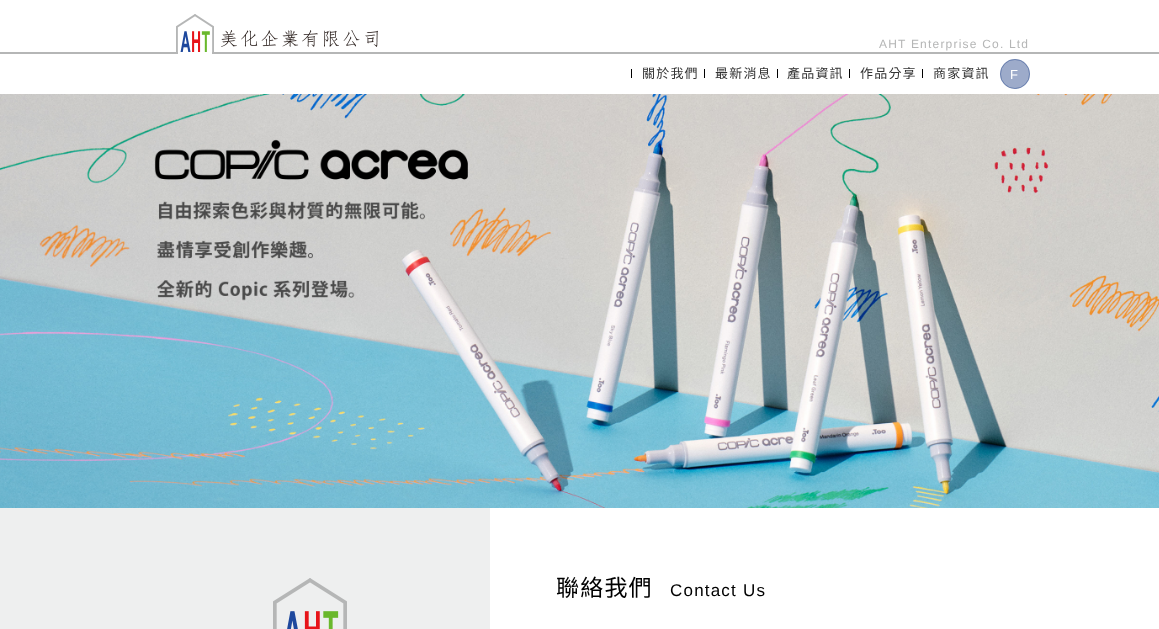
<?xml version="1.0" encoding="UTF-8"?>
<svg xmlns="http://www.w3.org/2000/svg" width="1159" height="629">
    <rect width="100%" height="100%" fill="#FFFFFF"/>
    <rect x="0" y="52" width="1159" height="2" fill="#B5B6B6"/>
    <rect x="130" y="52" width="900" height="2" fill="#FFFFFF"/>
    <image x="130" y="14" width="900" height="40" href="img_01.png"/>
    <text x="879" y="48" font-family="Liberation Sans" font-size="12" letter-spacing="1.2" fill="#B5B6B6">AHT Enterprise Co. Ltd</text>
    <rect x="631" y="69" width="1" height="9" fill="#000000"/>
    <text x="642" y="78" font-family="Noto Sans CJK TC" font-size="13" letter-spacing="1.2" fill="#333333">關於我們</text>
    <rect x="704" y="69" width="1" height="9" fill="#000000"/>
    <text x="715" y="78" font-family="Noto Sans CJK TC" font-size="13" letter-spacing="1.2" fill="#333333">最新消息</text>
    <rect x="777" y="69" width="1" height="9" fill="#000000"/>
    <text x="787" y="78" font-family="Noto Sans CJK TC" font-size="13" letter-spacing="1.2" fill="#333333">產品資訊</text>
    <rect x="849" y="69" width="1" height="9" fill="#000000"/>
    <text x="860" y="78" font-family="Noto Sans CJK TC" font-size="13" letter-spacing="1.2" fill="#333333">作品分享</text>
    <rect x="922" y="69" width="1" height="9" fill="#000000"/>
    <text x="933" y="78" font-family="Noto Sans CJK TC" font-size="13" letter-spacing="1.2" fill="#333333">商家資訊</text>
    <circle cx="1015" cy="74" r="15" fill="#9DABCA"/>
    <circle cx="1015" cy="74" r="14.5" fill="none" stroke="#3A5795" stroke-opacity="0.5"/>
    <text x="1010" y="79" font-family="Liberation Sans" font-size="13" letter-spacing="1.2" fill="#FFFFFF">F</text>
    <image x="0" y="94" width="1159" height="414" href="img_02.png"/>
    <rect x="0" y="508" width="490" height="121" fill="#EEEFEF"/>
    <image x="273" y="578" width="74" height="51" href="img_03.png"/>
    <text x="556" y="596" font-family="Noto Sans CJK TC" font-size="23" letter-spacing="1.2" fill="#000000">聯絡我們</text>
    <text x="670" y="596" font-family="Liberation Sans" font-size="17" letter-spacing="1.2" fill="#000000">Contact Us</text>
</svg>
